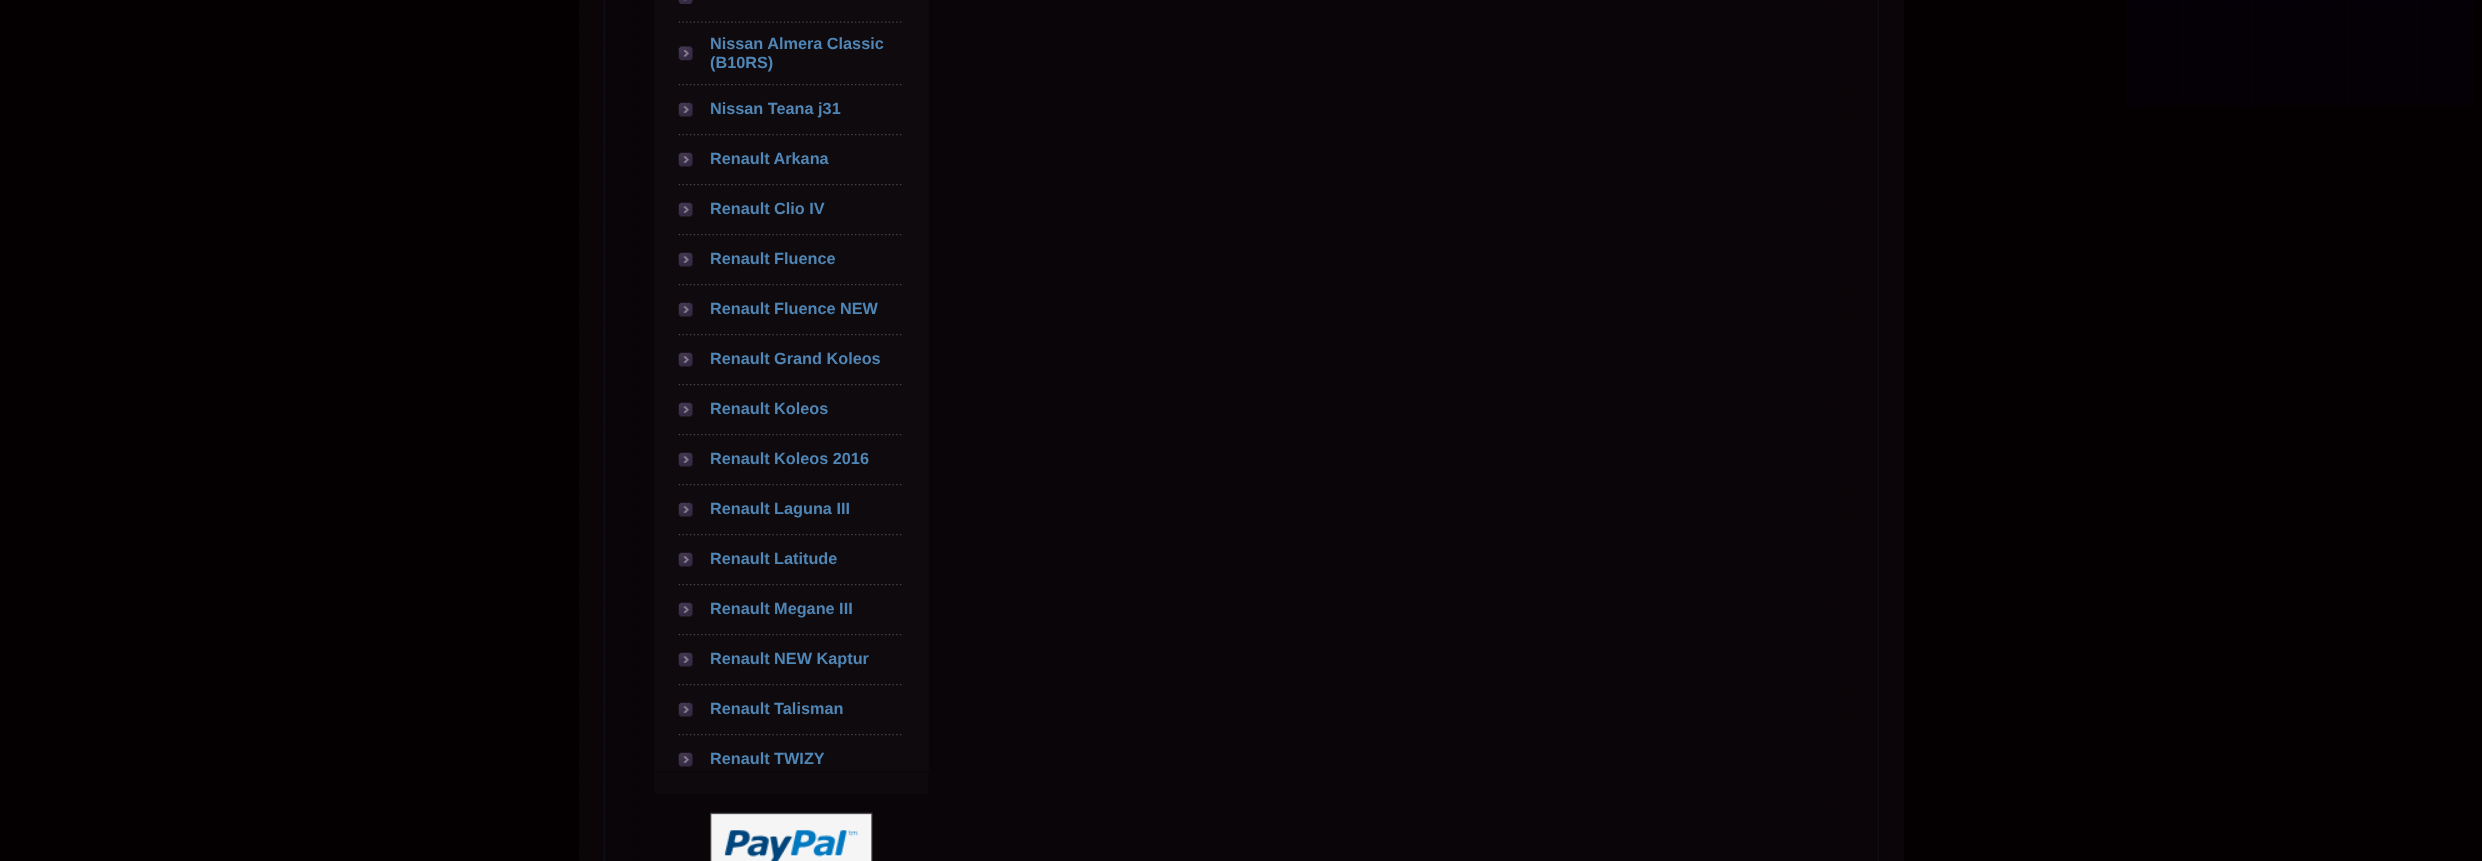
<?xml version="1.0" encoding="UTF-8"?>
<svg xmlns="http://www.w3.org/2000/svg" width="2482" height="861">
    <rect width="100%" height="100%" fill="#040002"/>
    <image x="579" y="0" width="75" height="861" href="img_01.png"/>
    <rect x="654" y="0" width="1175" height="861" fill="#0A0509"/>
    <rect x="654" y="0" width="275" height="771" fill="#0F0A0E"/>
    <image x="678" y="0" width="15" height="4" href="img_02.png"/>
    <image x="678" y="21" width="224" height="2" href="img_03.png"/>
    <image x="678" y="46" width="15" height="15" href="img_04.png"/>
    <text font-family="Liberation Sans" font-size="16.25" font-weight="700" fill="#5086B5">
        <tspan x="710" y="49">Nissan Almera Classic</tspan>
        <tspan x="710" y="68">(B10RS)</tspan>
    </text>
    <image x="678" y="84" width="224" height="2" href="img_05.png"/>
    <image x="678" y="102" width="15" height="15" href="img_06.png"/>
    <text x="710" y="114" font-family="Liberation Sans" font-size="16.25" font-weight="700" fill="#5086B5">Nissan Teana j31</text>
    <image x="678" y="134" width="224" height="2" href="img_05.png"/>
    <image x="678" y="152" width="15" height="15" href="img_06.png"/>
    <text x="710" y="164" font-family="Liberation Sans" font-size="16.25" font-weight="700" fill="#5086B5">Renault Arkana</text>
    <image x="678" y="184" width="224" height="2" href="img_05.png"/>
    <image x="678" y="202" width="15" height="15" href="img_06.png"/>
    <text x="710" y="214" font-family="Liberation Sans" font-size="16.25" font-weight="700" fill="#5086B5">Renault Clio IV</text>
    <image x="678" y="234" width="224" height="2" href="img_05.png"/>
    <image x="678" y="252" width="15" height="15" href="img_06.png"/>
    <text x="710" y="264" font-family="Liberation Sans" font-size="16.25" font-weight="700" fill="#5086B5">Renault Fluence</text>
    <image x="678" y="284" width="224" height="2" href="img_05.png"/>
    <image x="678" y="302" width="15" height="15" href="img_06.png"/>
    <text x="710" y="314" font-family="Liberation Sans" font-size="16.25" font-weight="700" fill="#5086B5">Renault Fluence NEW</text>
    <image x="678" y="334" width="224" height="2" href="img_05.png"/>
    <image x="678" y="352" width="15" height="15" href="img_06.png"/>
    <text x="710" y="364" font-family="Liberation Sans" font-size="16.25" font-weight="700" fill="#5086B5">Renault Grand Koleos</text>
    <image x="678" y="384" width="224" height="2" href="img_05.png"/>
    <image x="678" y="402" width="15" height="15" href="img_06.png"/>
    <text x="710" y="414" font-family="Liberation Sans" font-size="16.25" font-weight="700" fill="#5086B5">Renault Koleos</text>
    <image x="678" y="434" width="224" height="2" href="img_05.png"/>
    <image x="678" y="452" width="15" height="15" href="img_06.png"/>
    <text x="710" y="464" font-family="Liberation Sans" font-size="16.25" font-weight="700" fill="#5086B5">Renault Koleos 2016</text>
    <image x="678" y="484" width="224" height="2" href="img_05.png"/>
    <image x="678" y="502" width="15" height="15" href="img_06.png"/>
    <text x="710" y="514" font-family="Liberation Sans" font-size="16.25" font-weight="700" fill="#5086B5">Renault Laguna III</text>
    <image x="678" y="534" width="224" height="2" href="img_05.png"/>
    <image x="678" y="552" width="15" height="15" href="img_06.png"/>
    <text x="710" y="564" font-family="Liberation Sans" font-size="16.25" font-weight="700" fill="#5086B5">Renault Latitude</text>
    <image x="678" y="584" width="224" height="2" href="img_05.png"/>
    <image x="678" y="602" width="15" height="15" href="img_06.png"/>
    <text x="710" y="614" font-family="Liberation Sans" font-size="16.25" font-weight="700" fill="#5086B5">Renault Megane III</text>
    <image x="678" y="634" width="224" height="2" href="img_05.png"/>
    <image x="678" y="652" width="15" height="15" href="img_06.png"/>
    <text x="710" y="664" font-family="Liberation Sans" font-size="16.25" font-weight="700" fill="#5086B5">Renault NEW Kaptur</text>
    <image x="678" y="684" width="224" height="2" href="img_05.png"/>
    <image x="678" y="702" width="15" height="15" href="img_06.png"/>
    <text x="710" y="714" font-family="Liberation Sans" font-size="16.25" font-weight="700" fill="#5086B5">Renault Talisman</text>
    <image x="678" y="734" width="224" height="2" href="img_05.png"/>
    <image x="678" y="752" width="15" height="15" href="img_06.png"/>
    <text x="710" y="764" font-family="Liberation Sans" font-size="16.25" font-weight="700" fill="#5086B5">Renault TWIZY</text>
    <image x="654" y="772" width="274" height="22" href="img_07.png"/>
    <image x="710" y="812" width="163" height="49" href="img_08.png"/>
    <image x="1829" y="0" width="75" height="861" href="img_09.png"/>
    <image x="2126" y="0" width="348" height="106" href="img_10.png"/>
</svg>
